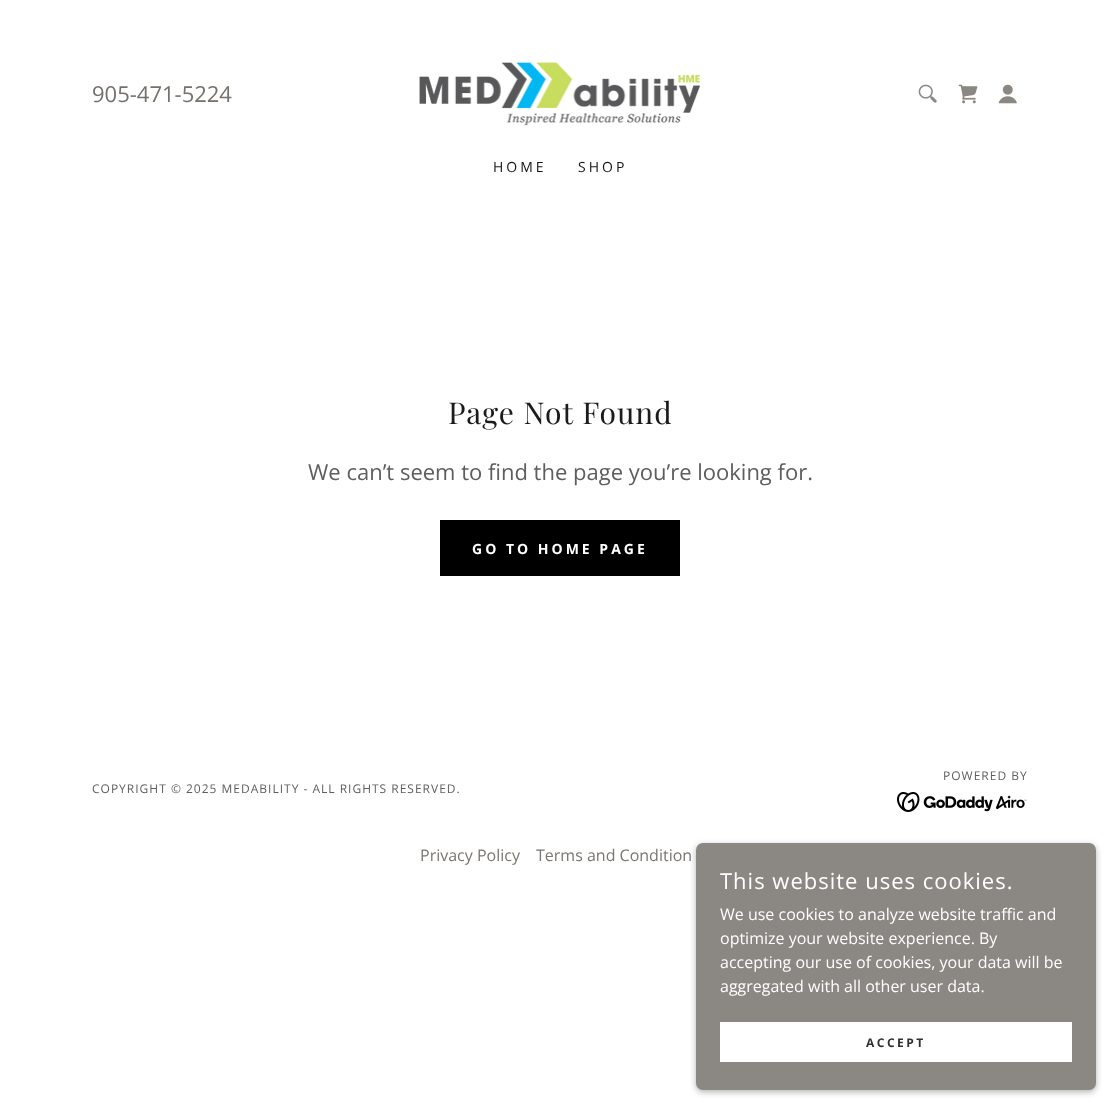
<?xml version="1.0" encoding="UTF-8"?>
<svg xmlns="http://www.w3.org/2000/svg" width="1120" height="1114">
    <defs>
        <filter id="blur1" x="-50%" y="-200%" width="200%" height="500%"><feGaussianBlur stdDeviation="3"/></filter>
    </defs>
    <rect width="100%" height="100%" fill="#FFFFFF"/>
    <text x="92" y="102" font-family="Open Sans" font-size="22" fill="#75706B">905-471-5224</text>
    <image x="419" y="62" width="282" height="64" href="img_01.png"/>
    <image x="918" y="84" width="19" height="19" href="img_02.png"/>
    <image x="958" y="84" width="20" height="20" href="img_03.png"/>
    <image x="998" y="84" width="19" height="20" href="img_04.png"/>
    <text x="493" y="172" font-family="Open Sans" font-size="14" letter-spacing="3" fill="#151515">HOME</text>
    <text x="578" y="172" font-family="Open Sans" font-size="14" letter-spacing="3" fill="#151515">SHOP</text>
    <text x="448" y="424" font-family="Playfair Display" font-size="30" letter-spacing="1" fill="#1B1B1B">Page Not Found</text>
    <text x="308" y="480" font-family="Open Sans" font-size="22" fill="#5E5E5E">We can’t seem to find the page you’re looking for.</text>
    <rect x="440" y="520" width="240" height="56" fill="#000000"/>
    <text x="472" y="554" font-family="Open Sans" font-size="14" font-weight="700" letter-spacing="3" fill="#FFFFFF">GO TO HOME PAGE</text>
    <text x="943" y="780" font-family="Open Sans" font-size="12" letter-spacing="1" fill="#5E5E5E">POWERED BY</text>
    <image x="897" y="792" width="130" height="20" href="img_05.png"/>
    <text x="92" y="793" font-family="Open Sans" font-size="12" letter-spacing="1" fill="#5E5E5E">COPYRIGHT © 2025 MEDABILITY - ALL RIGHTS RESERVED.</text>
    <text x="420" y="861" font-family="Open Sans" font-size="16" fill="#7A7671">Privacy Policy</text>
    <text x="536" y="861" font-family="Open Sans" font-size="16" fill="#7A7671">Terms and Condition</text>
    <rect x="696" y="845" width="400" height="247" rx="7" fill="#000000" fill-opacity="0.3" filter="url(#blur1)"/>
    <rect x="696" y="843" width="400" height="247" rx="7" fill="#8B8783"/>
    <text x="720" y="889" font-family="Open Sans" font-size="22" letter-spacing="1" fill="#FFFFFF">This website uses cookies.</text>
    <text font-family="Open Sans" font-size="16" fill="#FFFFFF">
        <tspan x="720" y="920">We use cookies to analyze website traffic and</tspan>
        <tspan x="720" y="944">optimize your website experience. By</tspan>
        <tspan x="720" y="968">accepting our use of cookies, your data will be</tspan>
        <tspan x="720" y="992">aggregated with all other user data.</tspan>
    </text>
    <rect x="720" y="1022" width="352" height="40" fill="#FFFFFF"/>
    <text x="866" y="1047" font-family="Open Sans" font-size="12" font-weight="700" letter-spacing="2.5" fill="#303030">ACCEPT</text>
</svg>
